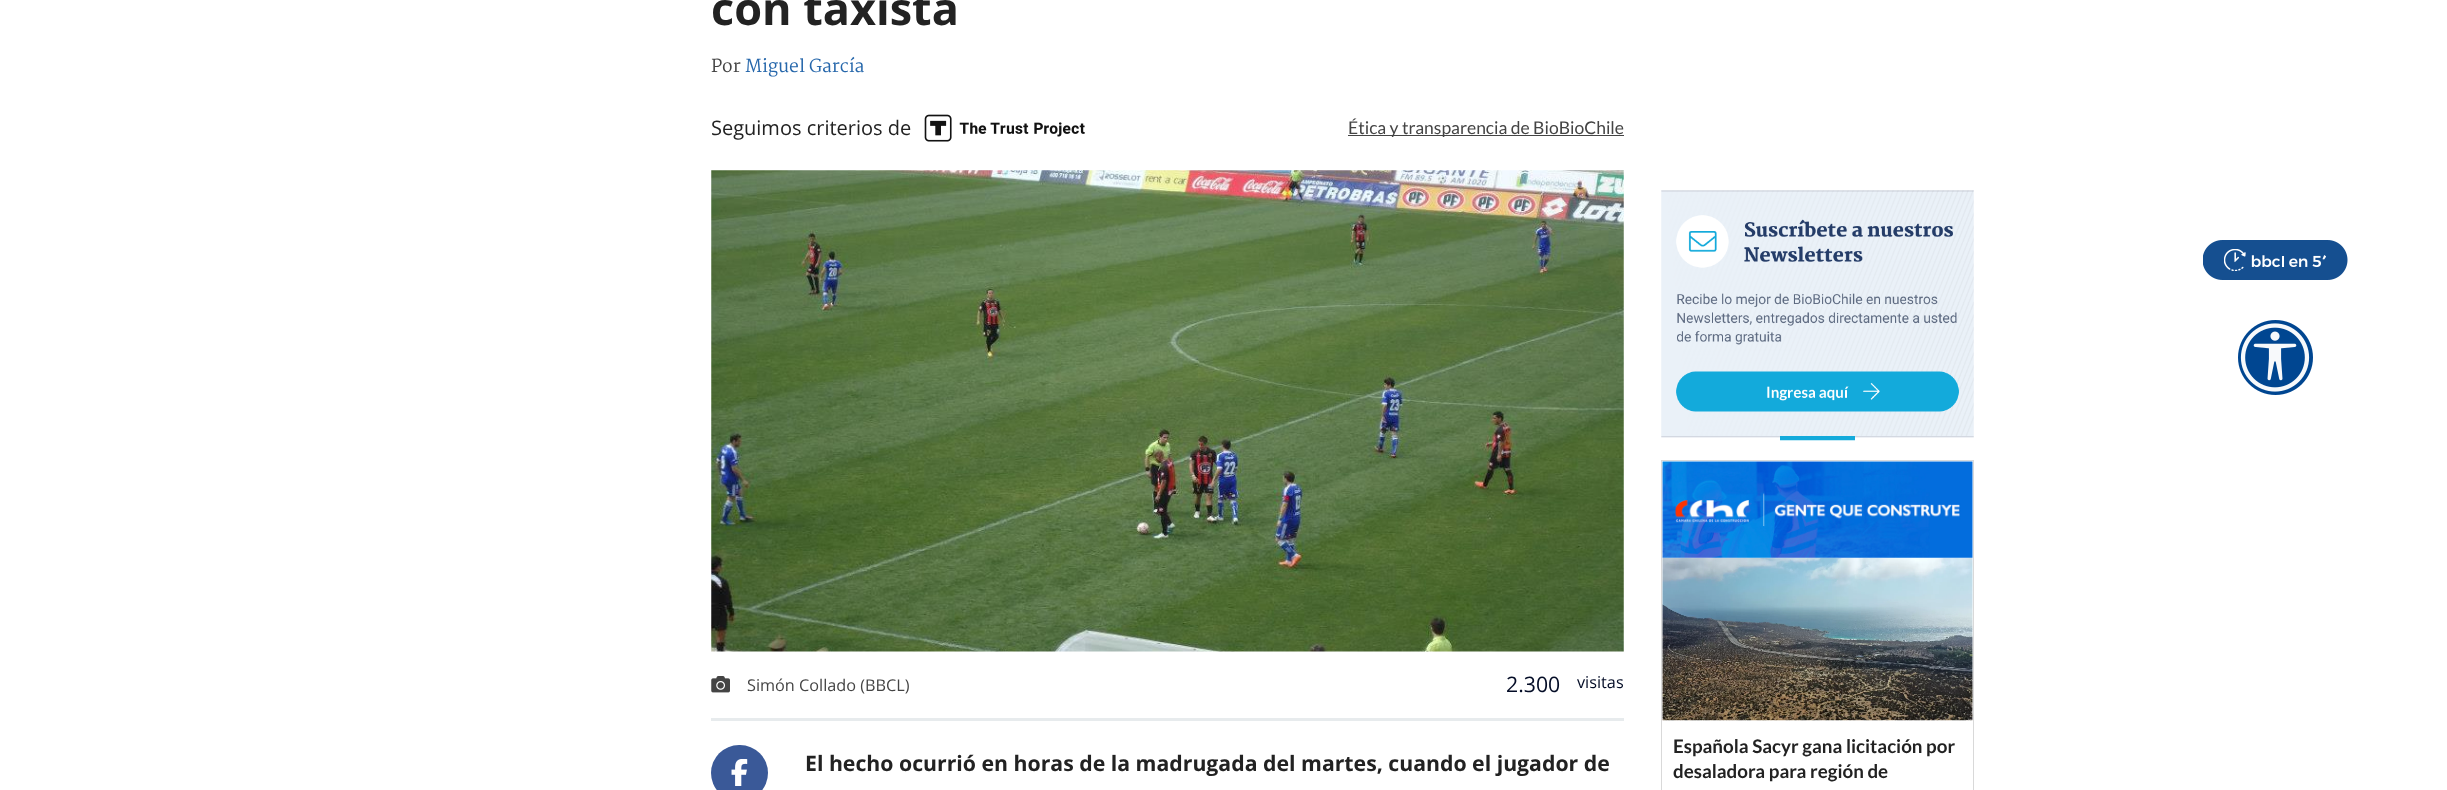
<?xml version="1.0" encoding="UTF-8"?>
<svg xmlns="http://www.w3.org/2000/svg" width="2447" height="790">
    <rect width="100%" height="100%" fill="#FFFFFF"/>
    <text x="711" y="25" font-family="Open Sans" font-size="45" font-weight="700" fill="#222222">con taxista</text>
    <text x="711" y="72" font-family="Martel" font-size="17.5" fill="#444444">Por</text>
    <text x="745" y="72" font-family="Martel" font-size="17.5" fill="#2667AB">Miguel García</text>
    <text x="711" y="135" font-family="Open Sans" font-size="20" fill="#222222">Seguimos criterios de</text>
    <image x="924" y="114" width="161" height="28" href="img_01.png"/>
    <rect x="1348" y="135" width="276" height="1" fill="#444444"/>
    <text x="1348" y="134" font-family="Lato" font-size="17.5" fill="#444444">Ética y transparencia de BioBioChile</text>
    <image x="711" y="170" width="913" height="482" href="img_02.png"/>
    <rect x="711" y="718" width="913" height="3" fill="#E7EBED"/>
    <image x="711" y="676" width="19" height="17" href="img_03.png"/>
    <text x="747" y="691" font-family="Open Sans" font-size="16.25" fill="#444444">Simón Collado (BBCL)</text>
    <text x="1506" y="692" font-family="Open Sans" font-size="21.25" fill="#030C26">2.300</text>
    <text x="1577" y="688" font-family="Open Sans" font-size="16.25" fill="#030C26">visitas</text>
    <rect x="711" y="745" width="57" height="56" rx="28" fill="#3A5998"/>
    <image x="731" y="759" width="17" height="27" href="img_04.png"/>
    <text x="805" y="771" font-family="Open Sans" font-size="21.25" font-weight="700" fill="#222222">El hecho ocurrió en horas de la madrugada del martes, cuando el jugador de</text>
    <image x="1661" y="190" width="313" height="251" href="img_05.png"/>
    <rect x="1661.5" y="460.5" width="312" height="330" fill="none" stroke="#D9D9D9"/>
    <image x="1662" y="557" width="311" height="164" href="img_07.png"/>
    <image x="1662" y="461" width="311" height="97" href="img_06.png"/>
    <text font-family="Lato" font-size="18.75" font-weight="700" fill="#222222">
        <tspan x="1673" y="753">Española Sacyr gana licitación por</tspan>
        <tspan x="1673" y="778">desaladora para región de</tspan>
    </text>
    <image x="2203" y="240" width="145" height="40" href="img_08.png"/>
    <image x="2238" y="320" width="75" height="75" href="img_09.png"/>
</svg>
